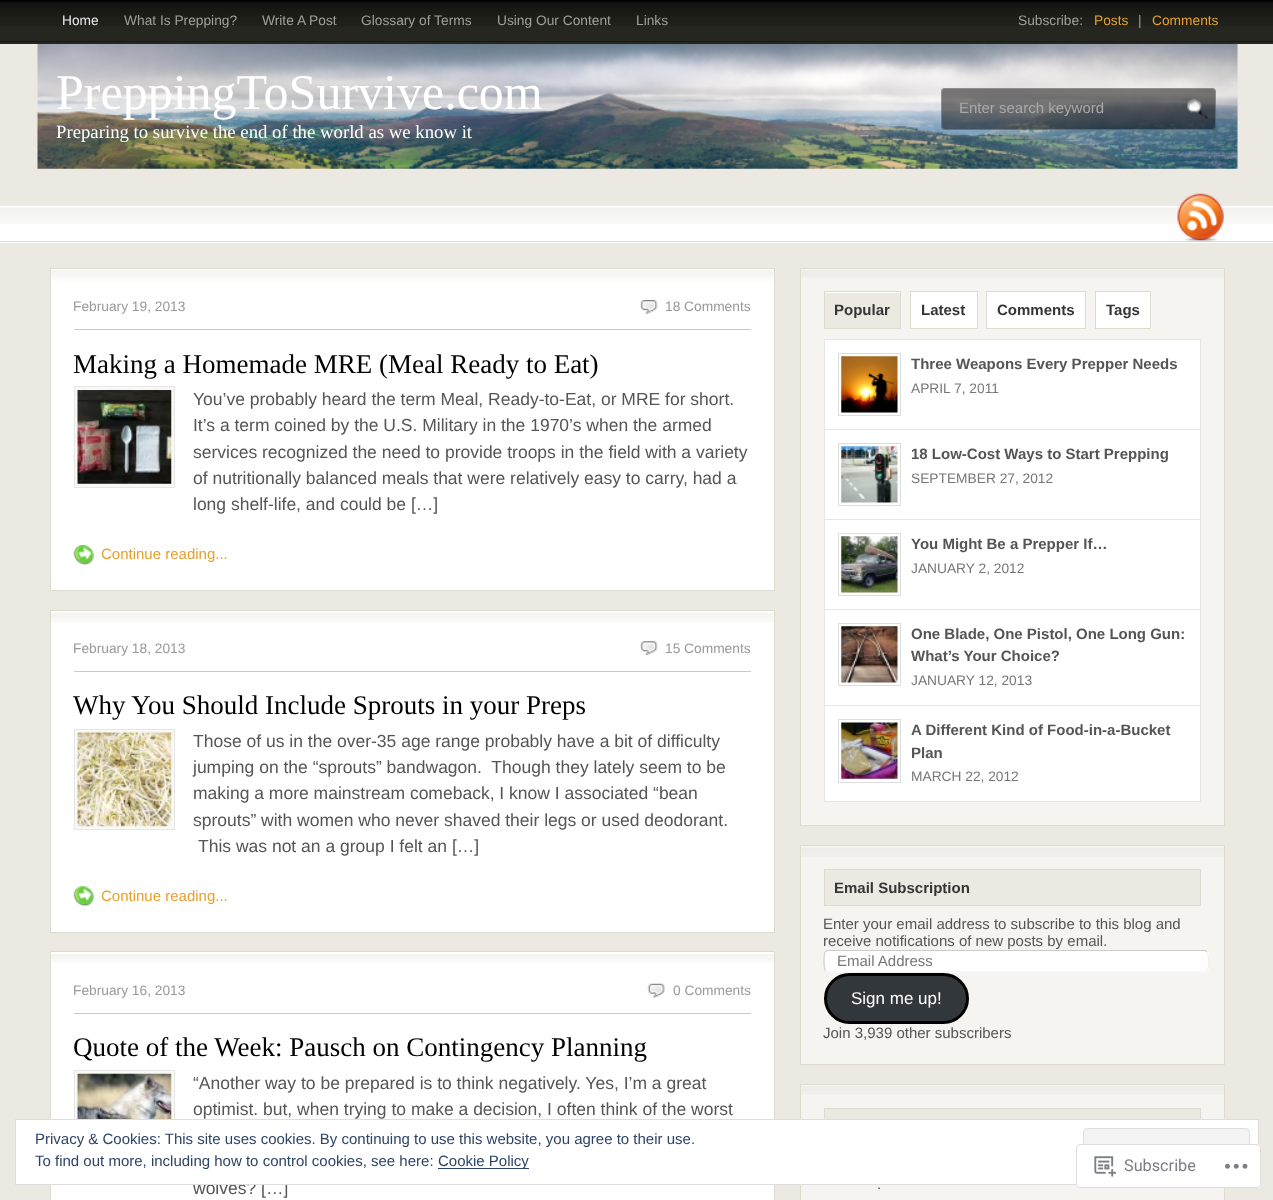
<?xml version="1.0" encoding="UTF-8"?>
<svg xmlns="http://www.w3.org/2000/svg" width="1273" height="1200">
    <rect width="100%" height="100%" fill="#EBE9E1"/>
    <image x="0" y="0" width="1273" height="26" href="img_01.png"/>
    <rect x="0" y="26" width="1273" height="18" fill="#252620"/>
    <rect x="0" y="41" width="1273" height="1" fill="#191A14"/>
    <text x="62" y="25" font-family="Liberation Sans" font-size="13.75" fill="#E9E9E9">Home</text>
    <text x="124" y="25" font-family="Liberation Sans" font-size="13.75" fill="#A0A09B">What Is Prepping?</text>
    <text x="262" y="25" font-family="Liberation Sans" font-size="13.75" fill="#A0A09B">Write A Post</text>
    <text x="361" y="25" font-family="Liberation Sans" font-size="13.75" fill="#A0A09B">Glossary of Terms</text>
    <text x="497" y="25" font-family="Liberation Sans" font-size="13.75" fill="#A0A09B">Using Our Content</text>
    <text x="636" y="25" font-family="Liberation Sans" font-size="13.75" fill="#A0A09B">Links</text>
    <text x="1018" y="25" font-family="Liberation Sans" font-size="13.75" fill="#A0A09B">Subscribe:</text>
    <text x="1094" y="25" font-family="Liberation Sans" font-size="13.75" fill="#E8A02C">Posts</text>
    <text x="1138" y="25" font-family="Liberation Sans" font-size="13.75" fill="#A0A09B">|</text>
    <text x="1152" y="25" font-family="Liberation Sans" font-size="13.75" fill="#E8A02C">Comments</text>
    <image x="37" y="44" width="1201" height="125" href="img_02.png"/>
    <text x="56" y="109" font-family="Liberation Serif" font-size="50" fill="#FFFFFF">PreppingToSurvive.com</text>
    <text x="56" y="138" font-family="Liberation Serif" font-size="18.75" fill="#FFFFFF">Preparing to survive the end of the world as we know it</text>
    <rect x="941" y="88" width="275" height="42" rx="4" fill="#000000" fill-opacity="0.5"/>
    <rect x="941.5" y="88.5" width="274" height="41" rx="3.5" fill="none" stroke="#FFFFFF" stroke-opacity="0.2"/>
    <text x="959" y="113" font-family="Liberation Sans" font-size="15" fill="#AAAAAA">Enter search keyword</text>
    <image x="1187" y="98" width="21" height="22" href="img_03.png"/>
    <rect x="0" y="206" width="1273" height="37" fill="#FFFEFF"/>
    <image x="0" y="207" width="1273" height="17" href="img_04.png"/>
    <rect x="0" y="241" width="1273" height="1" fill="#DCDCD4"/>
    <image x="1177" y="193" width="47" height="49" href="img_05.png"/>
    <rect x="51" y="269" width="723" height="321" fill="#FFFFFF"/>
    <image x="51" y="270" width="723" height="11" href="img_06.png"/>
    <rect x="50.5" y="268.5" width="724" height="322" fill="none" stroke="#DEDBD1"/>
    <rect x="74" y="329" width="677" height="1" fill="#CACACA"/>
    <text x="73" y="311" font-family="Liberation Sans" font-size="13.75" fill="#999999">February 19, 2013</text>
    <image x="640" y="300" width="18" height="14" href="img_07.png"/>
    <text x="665" y="311" font-family="Liberation Sans" font-size="13.75" fill="#999999">18 Comments</text>
    <text x="73" y="373" font-family="Liberation Serif" font-size="27" fill="#000000">Making a Homemade MRE (Meal Ready to Eat)</text>
    <rect x="74.5" y="386.5" width="100" height="101" fill="#F8F8F4" stroke="#E6E6E6"/>
    <image x="77" y="390" width="95" height="94" href="img_08.png"/>
    <text font-family="Liberation Sans" font-size="17.5" fill="#555555">
        <tspan x="193" y="405">You’ve probably heard the term Meal, Ready-to-Eat, or MRE for short.</tspan>
        <tspan x="193" y="431">It’s a term coined by the U.S. Military in the 1970’s when the armed</tspan>
        <tspan x="193" y="458">services recognized the need to provide troops in the field with a variety</tspan>
        <tspan x="193" y="484">of nutritionally balanced meals that were relatively easy to carry, had a</tspan>
        <tspan x="193" y="510">long shelf-life, and could be […]</tspan>
    </text>
    <image x="73" y="545" width="21" height="20" href="img_09.png"/>
    <text x="101" y="559" font-family="Liberation Sans" font-size="15" fill="#E8A02C">Continue reading...</text>
    <rect x="51" y="611" width="723" height="321" fill="#FFFFFF"/>
    <image x="51" y="612" width="723" height="11" href="img_10.png"/>
    <rect x="50.5" y="610.5" width="724" height="322" fill="none" stroke="#DEDBD1"/>
    <rect x="74" y="671" width="677" height="1" fill="#CACACA"/>
    <text x="73" y="653" font-family="Liberation Sans" font-size="13.75" fill="#999999">February 18, 2013</text>
    <image x="640" y="641" width="18" height="14" href="img_11.png"/>
    <text x="665" y="653" font-family="Liberation Sans" font-size="13.75" fill="#999999">15 Comments</text>
    <text x="73" y="714" font-family="Liberation Serif" font-size="27" fill="#000000">Why You Should Include Sprouts in your Preps</text>
    <rect x="74.5" y="729.5" width="100" height="100" fill="#F8F8F4" stroke="#E6E6E6"/>
    <image x="77" y="732" width="95" height="95" href="img_12.png"/>
    <text font-family="Liberation Sans" font-size="17.5" fill="#555555" xml:space="preserve"><tspan x="193" y="747">Those of us in the over-35 age range probably have a bit of difficulty</tspan><tspan x="193" y="773">jumping on the “sprouts” bandwagon.  Though they lately seem to be</tspan><tspan x="193" y="799">making a more mainstream comeback, I know I associated “bean</tspan><tspan x="193" y="826">sprouts” with women who never shaved their legs or used deodorant.</tspan></text>
    <text x="198" y="852" font-family="Liberation Sans" font-size="17.5" fill="#555555">This was not an a group I felt an […]</text>
    <image x="73" y="886" width="21" height="21" href="img_13.png"/>
    <text x="101" y="901" font-family="Liberation Sans" font-size="15" fill="#E8A02C">Continue reading...</text>
    <rect x="51" y="952" width="723" height="248" fill="#FFFFFF"/>
    <image x="51" y="954" width="723" height="9" href="img_14.png"/>
    <rect x="50.5" y="951.5" width="724" height="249" fill="none" stroke="#DEDBD1"/>
    <rect x="74" y="1013" width="677" height="1" fill="#CACACA"/>
    <text x="73" y="995" font-family="Liberation Sans" font-size="13.75" fill="#999999">February 16, 2013</text>
    <image x="647" y="983" width="18" height="15" href="img_15.png"/>
    <text x="673" y="995" font-family="Liberation Sans" font-size="13.75" fill="#999999">0 Comments</text>
    <text x="73" y="1056" font-family="Liberation Serif" font-size="27" fill="#000000">Quote of the Week: Pausch on Contingency Planning</text>
    <rect x="75" y="1071" width="99" height="48" fill="#F8F8F4"/>
    <rect x="74.5" y="1070.5" width="100" height="100" fill="none" stroke="#E6E6E6"/>
    <image x="77" y="1073" width="95" height="46" href="img_16.png"/>
    <text font-family="Liberation Sans" font-size="17.5" fill="#555555">
        <tspan x="193" y="1089">“Another way to be prepared is to think negatively. Yes, I’m a great</tspan>
        <tspan x="193" y="1115">optimist. but, when trying to make a decision, I often think of the worst</tspan>
    </text>
    <text x="193" y="1194" font-family="Liberation Sans" font-size="17.5" fill="#555555">wolves? […]</text>
    <rect x="801" y="269" width="423" height="556" fill="#F5F4F0"/>
    <image x="801" y="270" width="423" height="8" href="img_17.png"/>
    <rect x="800.5" y="268.5" width="424" height="557" fill="none" stroke="#DEDBD1"/>
    <rect x="825" y="292" width="75" height="1" fill="#FFFFFF"/>
    <rect x="824.5" y="291.5" width="76" height="37" fill="none" stroke="#DEDBD1"/>
    <rect x="825" y="293" width="75" height="35" fill="#EBE9E1"/>
    <text x="834" y="315" font-family="Liberation Sans" font-size="15" font-weight="700" fill="#353535">Popular</text>
    <rect x="910.5" y="291.5" width="67" height="37" fill="#FFFFFF" stroke="#DEDBD1"/>
    <text x="921" y="315" font-family="Liberation Sans" font-size="15" font-weight="700" fill="#353535">Latest</text>
    <rect x="986.5" y="291.5" width="99" height="37" fill="#FFFFFF" stroke="#DEDBD1"/>
    <text x="997" y="315" font-family="Liberation Sans" font-size="15" font-weight="700" fill="#353535">Comments</text>
    <rect x="1095.5" y="291.5" width="55" height="37" fill="#FFFFFF" stroke="#DEDBD1"/>
    <text x="1106" y="315" font-family="Liberation Sans" font-size="15" font-weight="700" fill="#353535">Tags</text>
    <rect x="824" y="339" width="377" height="1" fill="#E6E6E6"/>
    <rect x="824" y="801" width="377" height="1" fill="#E6E6E6"/>
    <rect x="825" y="340" width="375" height="89" fill="#FFFFFF"/>
    <rect x="1200" y="340" width="1" height="461" fill="#E6E6E6"/>
    <rect x="824" y="429" width="377" height="1" fill="#E6E6E6"/>
    <rect x="824" y="340" width="1" height="90" fill="#E6E6E6"/>
    <rect x="838.5" y="353.5" width="62" height="62" fill="none" stroke="#DDDDDD"/>
    <image x="841" y="356" width="57" height="57" href="img_18.png"/>
    <text x="911" y="369" font-family="Liberation Sans" font-size="15" font-weight="700" fill="#555555">Three Weapons Every Prepper Needs</text>
    <text x="911" y="393" font-family="Liberation Sans" font-size="13.75" fill="#777777">APRIL 7, 2011</text>
    <rect x="825" y="430" width="375" height="89" fill="#FFFFFF"/>
    <rect x="824" y="519" width="377" height="1" fill="#E6E6E6"/>
    <rect x="824" y="430" width="1" height="90" fill="#E6E6E6"/>
    <rect x="838.5" y="443.5" width="62" height="62" fill="none" stroke="#DDDDDD"/>
    <image x="841" y="446" width="57" height="57" href="img_19.png"/>
    <text x="911" y="459" font-family="Liberation Sans" font-size="15" font-weight="700" fill="#555555">18 Low-Cost Ways to Start Prepping</text>
    <text x="911" y="483" font-family="Liberation Sans" font-size="13.75" fill="#777777">SEPTEMBER 27, 2012</text>
    <rect x="825" y="520" width="375" height="89" fill="#FFFFFF"/>
    <rect x="824" y="609" width="377" height="1" fill="#E6E6E6"/>
    <rect x="824" y="520" width="1" height="90" fill="#E6E6E6"/>
    <rect x="838.5" y="533.5" width="62" height="62" fill="none" stroke="#DDDDDD"/>
    <image x="841" y="536" width="57" height="57" href="img_20.png"/>
    <text x="911" y="549" font-family="Liberation Sans" font-size="15" font-weight="700" fill="#555555">You Might Be a Prepper If…</text>
    <text x="911" y="573" font-family="Liberation Sans" font-size="13.75" fill="#777777">JANUARY 2, 2012</text>
    <rect x="825" y="610" width="375" height="95" fill="#FFFFFF"/>
    <rect x="824" y="705" width="377" height="1" fill="#E6E6E6"/>
    <rect x="824" y="610" width="1" height="191" fill="#E6E6E6"/>
    <rect x="838.5" y="623.5" width="62" height="62" fill="none" stroke="#DDDDDD"/>
    <image x="841" y="626" width="57" height="57" href="img_21.png"/>
    <text font-family="Liberation Sans" font-size="15" font-weight="700" fill="#555555">
        <tspan x="911" y="639">One Blade, One Pistol, One Long Gun:</tspan>
        <tspan x="911" y="661">What’s Your Choice?</tspan>
    </text>
    <text x="911" y="685" font-family="Liberation Sans" font-size="13.75" fill="#777777">JANUARY 12, 2013</text>
    <rect x="825" y="706" width="375" height="95" fill="#FFFFFF"/>
    <rect x="838.5" y="719.5" width="62" height="63" fill="none" stroke="#DDDDDD"/>
    <image x="841" y="722" width="57" height="57" href="img_22.png"/>
    <text font-family="Liberation Sans" font-size="15" font-weight="700" fill="#555555">
        <tspan x="911" y="735">A Different Kind of Food-in-a-Bucket</tspan>
        <tspan x="911" y="758">Plan</tspan>
    </text>
    <text x="911" y="781" font-family="Liberation Sans" font-size="13.75" fill="#777777">MARCH 22, 2012</text>
    <rect x="801" y="846" width="423" height="218" fill="#F5F4F0"/>
    <image x="801" y="848" width="423" height="9" href="img_23.png"/>
    <rect x="800.5" y="845.5" width="424" height="219" fill="none" stroke="#DEDBD1"/>
    <rect x="824.5" y="869.5" width="376" height="36" fill="#EBE9E1" stroke="#DEDBD1"/>
    <text x="834" y="893" font-family="Liberation Sans" font-size="15" font-weight="700" fill="#353535">Email Subscription</text>
    <text font-family="Liberation Sans" font-size="15" fill="#555555">
        <tspan x="823" y="929">Enter your email address to subscribe to this blog and</tspan>
        <tspan x="823" y="946">receive notifications of new posts by email.</tspan>
    </text>
    <rect x="824" y="950" width="385" height="23" rx="4" fill="#FFFFFF"/>
    <path d="M 1207 951.5 C 1209 953 1209 969.5 1207 971 L 1205.5 972 H 1079 H 827 L 825.5 971" fill="none" stroke="#EFEFEF" stroke-width="1.2"/>
    <path d="M 825.5 971 C 823.5 969.5 823.5 953 825.5 951.5 L 827 950.5 H 953.5 H 1205.5 L 1207 951.5" fill="none" stroke="#CCCCCC" stroke-width="1.2"/>
    <text x="837" y="966" font-family="Liberation Sans" font-size="15" fill="#777777">Email Address</text>
    <rect x="825.5" y="974.5" width="142" height="48" rx="24" fill="#32373C" stroke="#000000" stroke-width="3"/>
    <text x="851" y="1004" font-family="Liberation Sans" font-size="17" fill="#FFFFFF">Sign me up!</text>
    <text x="823" y="1038" font-family="Liberation Sans" font-size="15" fill="#555555">Join 3,939 other subscribers</text>
    <rect x="801" y="1085" width="423" height="115" fill="#F5F4F0"/>
    <image x="801" y="1086" width="423" height="9" href="img_24.png"/>
    <rect x="800.5" y="1084.5" width="424" height="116" fill="none" stroke="#DEDBD1"/>
    <rect x="825" y="1109" width="375" height="10" fill="#EBE9E1"/>
    <rect x="824.5" y="1108.5" width="376" height="36" fill="none" stroke="#DEDBD1"/>
    <text x="877" y="1189" font-family="Liberation Sans" font-size="15" fill="#555555">.</text>
    <rect x="15.5" y="1119.5" width="1243" height="65" fill="#FFFFFF" stroke="#DEDEDE"/>
    <text x="35" y="1144" font-family="Liberation Sans" font-size="15" fill="#2E4467">Privacy &amp; Cookies: This site uses cookies. By continuing to use this website, you agree to their use.</text>
    <rect x="1083.5" y="1128.5" width="166" height="47" rx="3.5" fill="#F3F3F3" stroke="#DEDEDE"/>
    <text x="35" y="1166" font-family="Liberation Sans" font-size="15" fill="#2E4467">To find out more, including how to control cookies, see here:</text>
    <rect x="438" y="1168" width="91" height="1" fill="#2E4467"/>
    <text x="438" y="1166" font-family="Liberation Sans" font-size="15" fill="#2E4467">Cookie Policy</text>
    <rect x="1076" y="1144" width="185" height="44" rx="4" fill="#FFFFFF" fill-opacity="0.98"/>
    <rect x="1076.5" y="1144.5" width="184" height="43" rx="3.5" fill="none" stroke="#DCDCDE" stroke-opacity="0.98"/>
    <image x="1094" y="1156" width="22" height="21" href="img_25.png"/>
    <text x="1124" y="1171" font-family="Roboto" font-size="16.25" fill="#7A7E84">Subscribe</text>
    <image x="1225" y="1163" width="23" height="6" href="img_26.png"/>
</svg>
